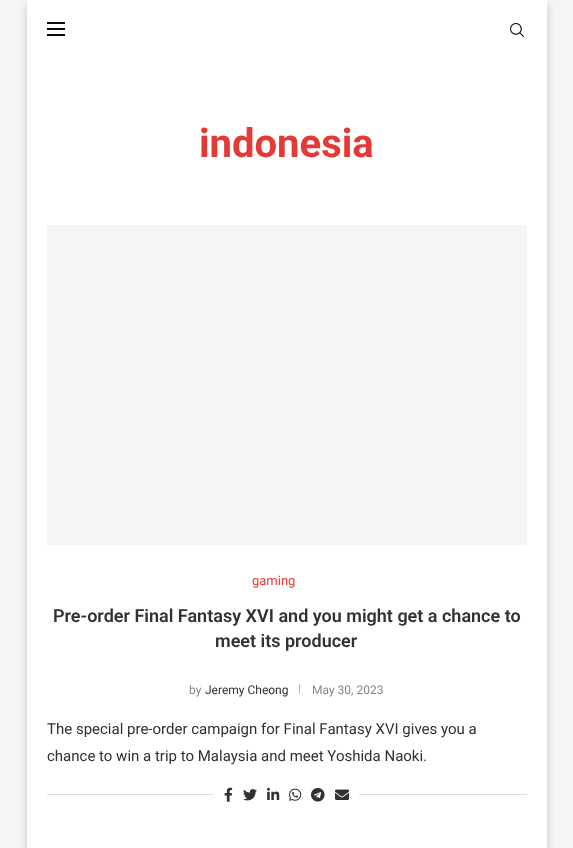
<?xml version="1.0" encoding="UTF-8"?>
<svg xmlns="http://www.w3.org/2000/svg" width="573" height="848">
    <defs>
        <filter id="blur1" x="-50%" y="-200%" width="200%" height="500%"><feGaussianBlur stdDeviation="4"/></filter>
    </defs>
    <rect width="100%" height="100%" fill="#F5F5F5"/>
    <rect x="27" y="5" width="520" height="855" fill="#000000" fill-opacity="0.2" filter="url(#blur1)"/>
    <rect x="27" y="0" width="520" height="848" fill="#FFFFFF"/>
    <rect x="47" y="22" width="18" height="2" fill="#0A0A0A"/>
    <rect x="47" y="28" width="18" height="2" fill="#0A0A0A"/>
    <rect x="47" y="34" width="18" height="2" fill="#0A0A0A"/>
    <image x="510" y="23" width="14" height="14" href="img_01.png"/>
    <text x="199" y="157" font-family="Roboto" font-size="40" font-weight="700" fill="#E53935">indonesia</text>
    <rect x="47" y="225" width="480" height="320" fill="#F5F5F5"/>
    <text x="252" y="585" font-family="Roboto" font-size="13" fill="#E53935">gaming</text>
    <text x="53" y="622" font-family="Roboto" font-size="18" font-weight="600" fill="#313131">Pre-order Final Fantasy XVI and you might get a chance to</text>
    <text x="215" y="647" font-family="Roboto" font-size="18" font-weight="600" fill="#313131">meet its producer</text>
    <text x="189" y="694" font-family="Roboto" font-size="12" fill="#888888">by</text>
    <text x="205" y="694" font-family="Roboto" font-size="12" fill="#313131">Jeremy Cheong</text>
    <rect x="299" y="684" width="1" height="10" fill="#B8B8B8"/>
    <text x="312" y="694" font-family="Roboto" font-size="12" fill="#888888">May 30, 2023</text>
    <text font-family="Roboto" font-size="15" fill="#313131">
        <tspan x="47" y="734">The special pre-order campaign for Final Fantasy XVI gives you a</tspan>
        <tspan x="47" y="761">chance to win a trip to Malaysia and meet Yoshida Naoki.</tspan>
    </text>
    <rect x="47" y="794" width="480" height="1" fill="#DEDEDE"/>
    <rect x="214" y="794" width="145" height="1" fill="#FFFFFF"/>
    <image x="224" y="787" width="9" height="15" href="img_02.png"/>
    <image x="243" y="789" width="14" height="12" href="img_03.png"/>
    <image x="267" y="787" width="13" height="13" href="img_04.png"/>
    <image x="289" y="788" width="13" height="13" href="img_05.png"/>
    <image x="311" y="788" width="14" height="14" href="img_06.png"/>
    <image x="335" y="789" width="14" height="11" href="img_07.png"/>
</svg>
